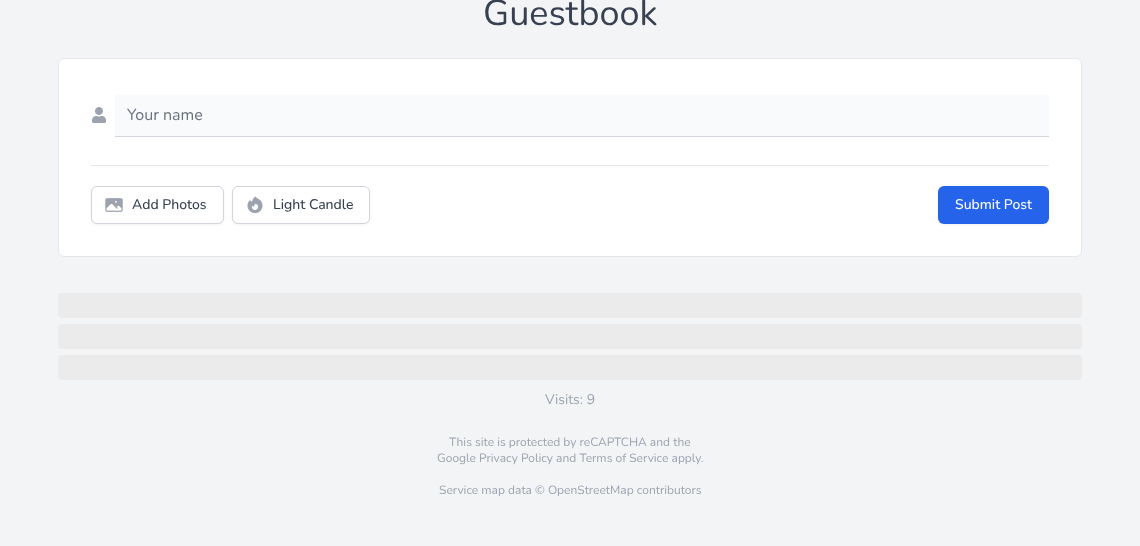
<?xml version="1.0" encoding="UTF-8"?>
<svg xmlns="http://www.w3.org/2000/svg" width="1140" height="546">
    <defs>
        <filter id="blur1" x="-50%" y="-200%" width="200%" height="500%"><feGaussianBlur stdDeviation="1"/></filter>
    </defs>
    <rect width="100%" height="100%" fill="#F3F4F6"/>
    <text x="483" y="25" font-family="Nunito" font-size="36" fill="#374151">Guestbook</text>
    <rect x="58.5" y="58.5" width="1023" height="198" rx="5.5" fill="#FFFFFF" stroke="#E5E7EB"/>
    <image x="92" y="107" width="14" height="16" href="img_01.png"/>
    <rect x="115" y="136" width="934" height="1" fill="#D1D5DB"/>
    <rect x="115" y="95" width="934" height="41" fill="#F9FAFB"/>
    <text x="127" y="120" font-family="Nunito" font-size="16" fill="#6B7280">Your name</text>
    <rect x="91" y="165" width="958" height="1" fill="#E5E7EB"/>
    <rect x="91" y="187" width="133" height="38" rx="6" fill="#000000" fill-opacity="0.05" filter="url(#blur1)"/>
    <rect x="91.5" y="186.5" width="132" height="37" rx="5.5" fill="#FFFFFF" stroke="#D1D5DB"/>
    <image x="105" y="198" width="18" height="14" href="img_02.png"/>
    <text x="132" y="209" font-family="Nunito" font-size="14" font-weight="500" fill="#374151">Add Photos</text>
    <rect x="232" y="187" width="138" height="38" rx="6" fill="#000000" fill-opacity="0.05" filter="url(#blur1)"/>
    <rect x="232.5" y="186.5" width="137" height="37" rx="5.5" fill="#FFFFFF" stroke="#D1D5DB"/>
    <image x="247" y="196" width="16" height="18" href="img_03.png"/>
    <text x="273" y="209" font-family="Nunito" font-size="14" font-weight="500" fill="#374151">Light Candle</text>
    <rect x="938" y="187" width="111" height="38" rx="6" fill="#000000" fill-opacity="0.05" filter="url(#blur1)"/>
    <rect x="938" y="186" width="111" height="38" rx="6" fill="#2563EB"/>
    <text x="955" y="209" font-family="Nunito" font-size="14" font-weight="500" fill="#FFFFFF">Submit Post</text>
    <rect x="58" y="293" width="1024" height="25" rx="4" fill="#EBEBEB"/>
    <rect x="58" y="324" width="1024" height="25" rx="4" fill="#EBEBEB"/>
    <rect x="58" y="355" width="1024" height="25" rx="4" fill="#EBEBEB"/>
    <text x="545" y="404" font-family="Nunito" font-size="14" fill="#9CA3AF">Visits: 9</text>
    <text x="449" y="446" font-family="Nunito" font-size="12" fill="#9CA3AF">This site is protected by reCAPTCHA and the</text>
    <text x="437" y="462" font-family="Nunito" font-size="12" fill="#9CA3AF">Google Privacy Policy and Terms of Service apply.</text>
    <text x="439" y="494" font-family="Nunito" font-size="12" fill="#9CA3AF">Service map data © OpenStreetMap contributors</text>
</svg>
